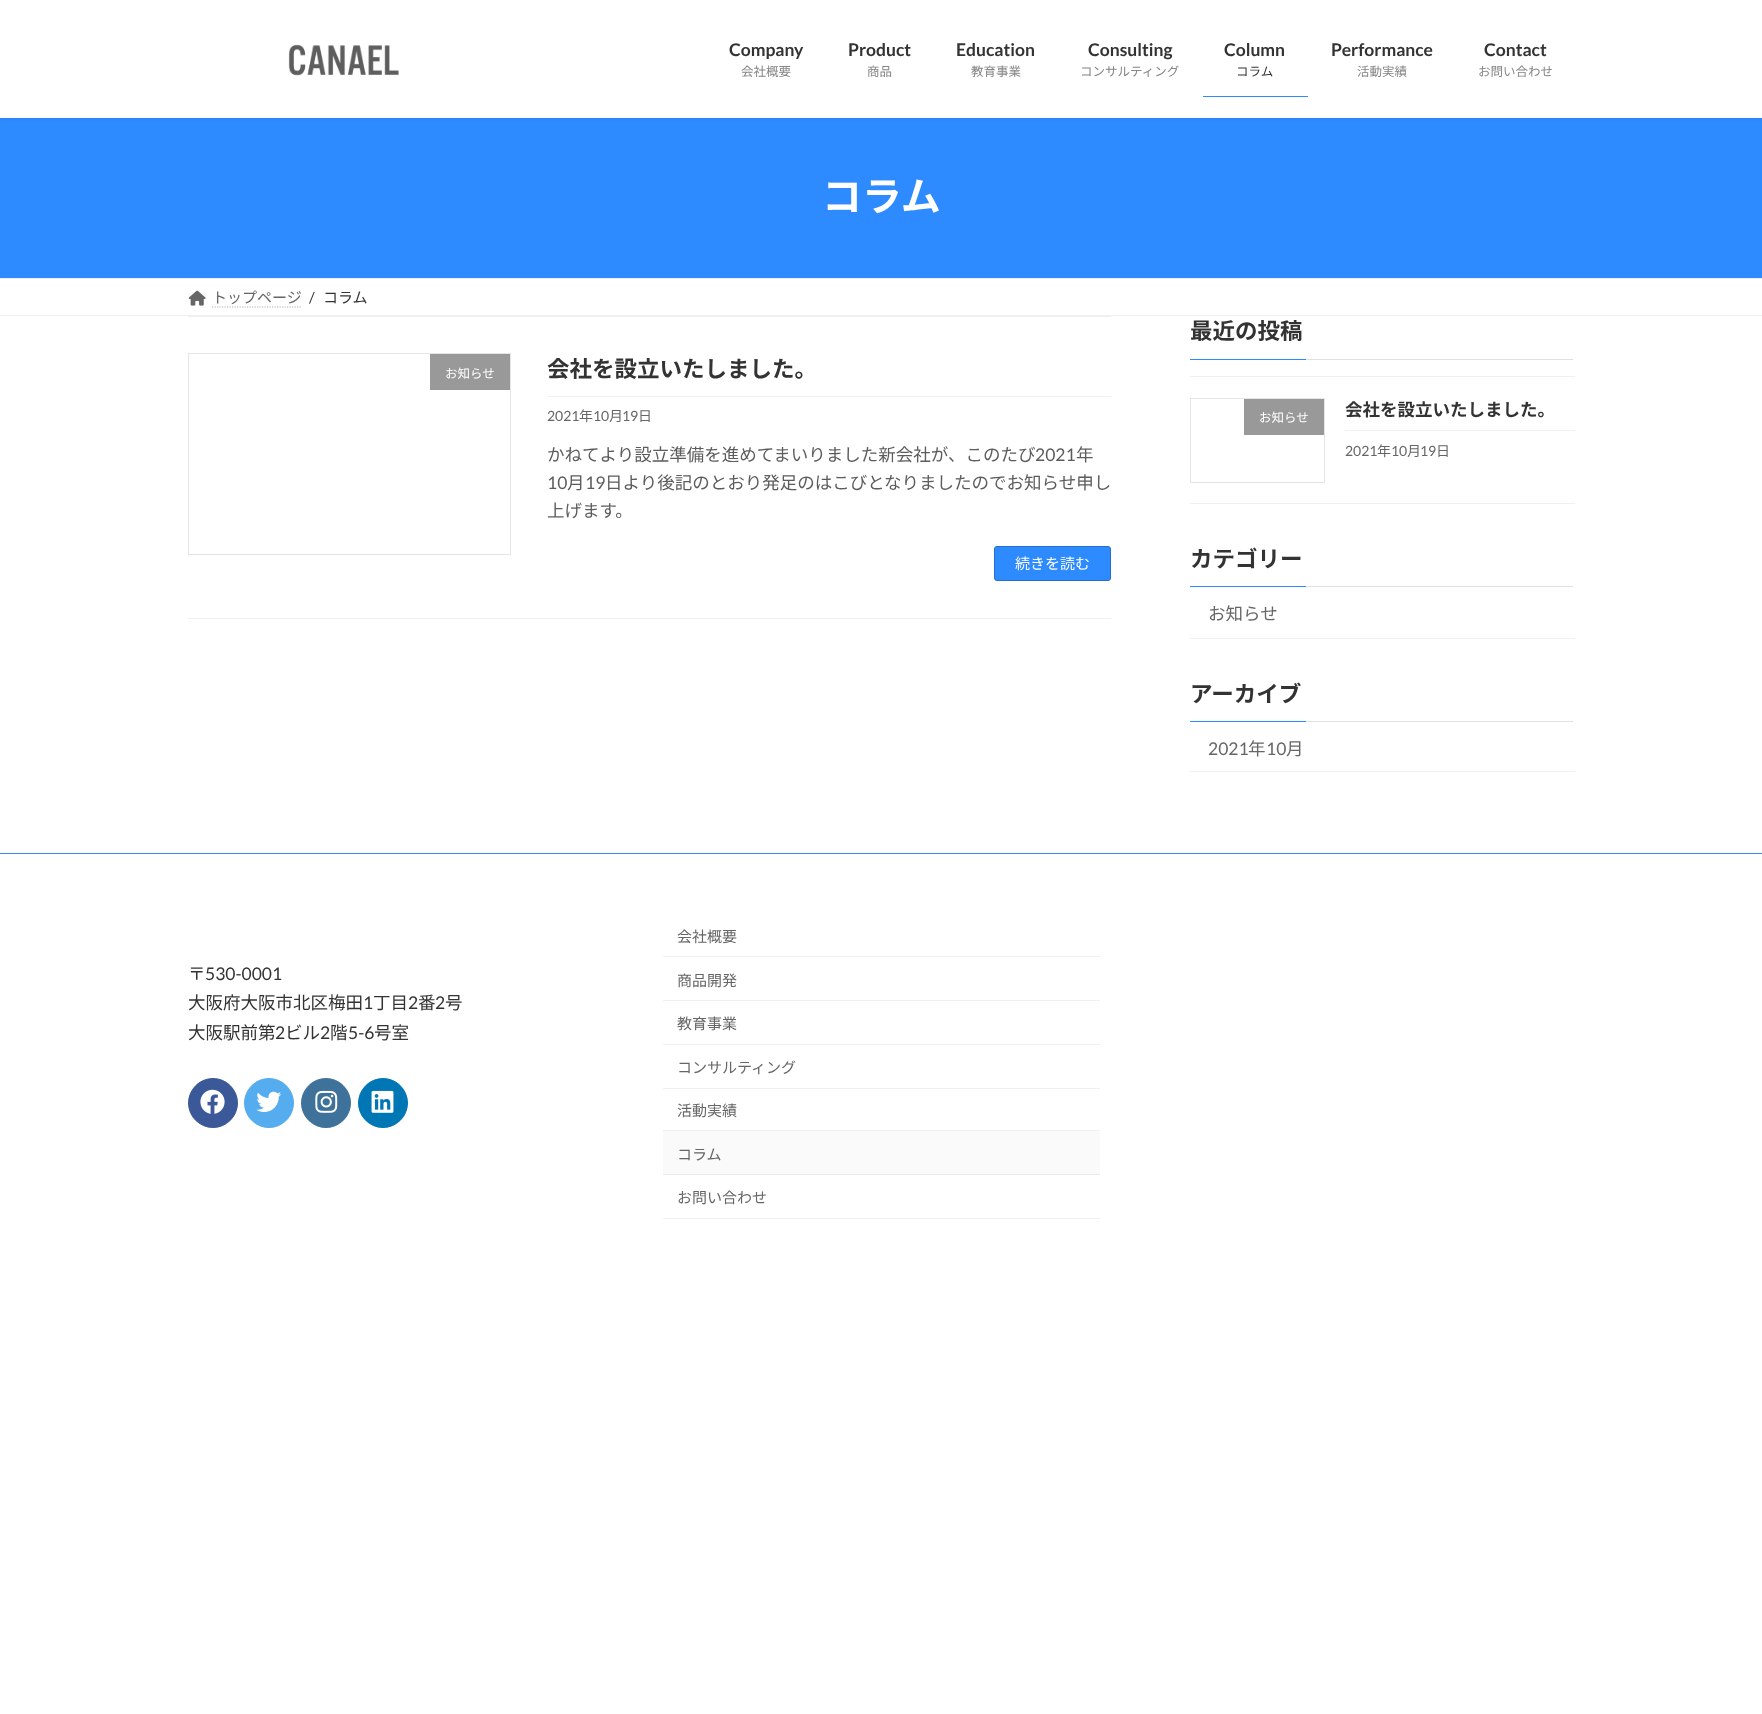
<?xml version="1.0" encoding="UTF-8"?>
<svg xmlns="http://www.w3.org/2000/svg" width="1762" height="1714">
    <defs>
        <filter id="blur1" x="-50%" y="-200%" width="200%" height="500%"><feGaussianBlur stdDeviation="2"/></filter>
    </defs>
    <rect width="100%" height="100%" fill="#FFFFFF"/>
    <rect x="0" y="118" width="1762" height="160" fill="#2D8BFF"/>
    <rect x="0" y="1" width="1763" height="118" fill="#000000" fill-opacity="0.05" filter="url(#blur1)"/>
    <rect x="0" y="0" width="1762" height="118" fill="#FFFFFF"/>
    <image x="288" y="44" width="111" height="32" href="img_01.png"/>
    <text x="729" y="56" font-family="Lato" font-size="17.5" font-weight="700" fill="#333333">Company</text>
    <text x="741" y="76" font-family="Noto Sans JP" font-size="12.5" fill="#858585">会社概要</text>
    <text x="848" y="56" font-family="Lato" font-size="17.5" font-weight="700" fill="#333333">Product</text>
    <text x="867" y="76" font-family="Noto Sans JP" font-size="12.5" fill="#858585">商品</text>
    <text x="956" y="56" font-family="Lato" font-size="17.5" font-weight="700" fill="#333333">Education</text>
    <text x="971" y="76" font-family="Noto Sans JP" font-size="12.5" fill="#858585">教育事業</text>
    <text x="1088" y="56" font-family="Lato" font-size="17.5" font-weight="700" fill="#333333">Consulting</text>
    <text x="1080" y="76" font-family="Noto Sans JP" font-size="12.5" fill="#858585">コンサルティング</text>
    <text x="1224" y="56" font-family="Lato" font-size="17.5" font-weight="700" fill="#333333">Column</text>
    <text x="1236" y="76" font-family="Noto Sans JP" font-size="12.5" fill="#333333">コラム</text>
    <rect x="1203" y="96" width="105" height="1" fill="#2D8BFF"/>
    <text x="1331" y="56" font-family="Lato" font-size="17.5" font-weight="700" fill="#333333">Performance</text>
    <text x="1357" y="76" font-family="Noto Sans JP" font-size="12.5" fill="#858585">活動実績</text>
    <text x="1484" y="56" font-family="Lato" font-size="17.5" font-weight="700" fill="#333333">Contact</text>
    <text x="1478" y="76" font-family="Noto Sans JP" font-size="12.5" fill="#858585">お問い合わせ</text>
    <text x="822" y="211" font-family="Noto Sans JP" font-size="40" font-weight="700" fill="#FFFFFF">コラム</text>
    <rect x="0" y="278" width="1762" height="1" fill="#F0F0F0"/>
    <rect x="0" y="315" width="1762" height="1" fill="#F0F0F0"/>
    <image x="188" y="290" width="18" height="16" href="img_02.png"/>
    <text x="212" y="303" font-family="Noto Sans JP" font-size="15" fill="#666666">トップページ</text>
    <path d="M 212 307 H 302" fill="none" stroke="#B3B3B3" stroke-width="1.2" stroke-dasharray="1.25 1.25"/>
    <text x="309" y="303" font-family="Lato" font-size="15" fill="#333333">/</text>
    <text x="323" y="303" font-family="Noto Sans JP" font-size="15" fill="#333333">コラム</text>
    <rect x="188" y="316" width="923" height="1" fill="#F0F0F0"/>
    <rect x="188" y="618" width="923" height="1" fill="#F0F0F0"/>
    <rect x="188.5" y="353.5" width="322" height="201" fill="none" stroke="#E5E5E5"/>
    <rect x="430" y="354" width="80" height="36" fill="#999999"/>
    <text x="445" y="378" font-family="Noto Sans JP" font-size="12.5" fill="#FFFFFF">お知らせ</text>
    <rect x="548" y="396" width="563" height="1" fill="#F0F0F0"/>
    <text x="547" y="377" font-family="Noto Sans JP" font-size="22.5" font-weight="700" fill="#333333">会社を設立いたしました。</text>
    <text x="547" y="421" font-family="Lato" font-size="14" fill="#666666">2021</text>
    <text x="579" y="421" font-family="Noto Sans JP" font-size="14" fill="#666666">年</text>
    <text x="593" y="421" font-family="Lato" font-size="14" fill="#666666">10</text>
    <text x="609" y="421" font-family="Noto Sans JP" font-size="14" fill="#666666">月</text>
    <text x="622" y="421" font-family="Lato" font-size="14" fill="#666666">19</text>
    <text x="638" y="421" font-family="Noto Sans JP" font-size="14" fill="#666666">日</text>
    <text x="547" y="461" font-family="Noto Sans JP" font-size="17.5" fill="#5C5C5C">かねてより設立準備を進めてまいりました新会社が、このたび</text>
    <text x="1035" y="461" font-family="Lato" font-size="17.5" fill="#5C5C5C">2021</text>
    <text x="1076" y="461" font-family="Noto Sans JP" font-size="17.5" fill="#5C5C5C">年</text>
    <text x="547" y="489" font-family="Lato" font-size="17.5" fill="#5C5C5C">10</text>
    <text x="567" y="489" font-family="Noto Sans JP" font-size="17.5" fill="#5C5C5C">月</text>
    <text x="585" y="489" font-family="Lato" font-size="17.5" fill="#5C5C5C">19</text>
    <text x="605" y="489" font-family="Noto Sans JP" font-size="17.5" fill="#5C5C5C">日より後記のとおり発足のはこびとなりましたのでお知らせ申し</text>
    <text x="547" y="517" font-family="Noto Sans JP" font-size="17.5" fill="#5C5C5C">上げます。</text>
    <rect x="994.5" y="546.5" width="116" height="34" rx="2.5" fill="#2D8BFF" stroke="#246FCC"/>
    <text x="1015" y="569" font-family="Noto Sans JP" font-size="15" fill="#FFFFFF">続きを読む</text>
    <rect x="1306" y="359" width="267" height="1" fill="#E0E0E0"/>
    <text x="1190" y="339" font-family="Noto Sans JP" font-size="22.5" font-weight="700" fill="#333333">最近の投稿</text>
    <rect x="1190" y="359" width="116" height="1" fill="#2D8BFF"/>
    <rect x="1190" y="376" width="385" height="1" fill="#F0F0F0"/>
    <rect x="1190" y="503" width="385" height="1" fill="#F0F0F0"/>
    <rect x="1190.5" y="398.5" width="134" height="84" fill="none" stroke="#E5E5E5"/>
    <rect x="1244" y="399" width="80" height="36" fill="#999999"/>
    <text x="1259" y="422" font-family="Noto Sans JP" font-size="12.5" fill="#FFFFFF">お知らせ</text>
    <rect x="1345" y="430" width="230" height="1" fill="#F0F0F0"/>
    <text x="1345" y="416" font-family="Noto Sans JP" font-size="17.5" font-weight="700" fill="#333333">会社を設立いたしました。</text>
    <text x="1345" y="456" font-family="Lato" font-size="14" fill="#666666">2021</text>
    <text x="1377" y="456" font-family="Noto Sans JP" font-size="14" fill="#666666">年</text>
    <text x="1391" y="456" font-family="Lato" font-size="14" fill="#666666">10</text>
    <text x="1407" y="456" font-family="Noto Sans JP" font-size="14" fill="#666666">月</text>
    <text x="1420" y="456" font-family="Lato" font-size="14" fill="#666666">19</text>
    <text x="1436" y="456" font-family="Noto Sans JP" font-size="14" fill="#666666">日</text>
    <rect x="1306" y="586" width="267" height="1" fill="#E0E0E0"/>
    <text x="1190" y="567" font-family="Noto Sans JP" font-size="22.5" font-weight="700" fill="#333333">カテゴリー</text>
    <rect x="1190" y="586" width="116" height="1" fill="#2D8BFF"/>
    <rect x="1190" y="638" width="385" height="1" fill="#F0F0F0"/>
    <text x="1208" y="620" font-family="Noto Sans JP" font-size="17.5" fill="#666666">お知らせ</text>
    <rect x="1306" y="721" width="267" height="1" fill="#E0E0E0"/>
    <text x="1190" y="702" font-family="Noto Sans JP" font-size="22.5" font-weight="700" fill="#333333">アーカイブ</text>
    <rect x="1190" y="721" width="116" height="1" fill="#2D8BFF"/>
    <rect x="1190" y="771" width="385" height="1" fill="#F0F0F0"/>
    <text x="1208" y="755" font-family="Lato" font-size="17.5" fill="#666666">2021</text>
    <text x="1248" y="755" font-family="Noto Sans JP" font-size="17.5" fill="#666666">年</text>
    <text x="1266" y="755" font-family="Lato" font-size="17.5" fill="#666666">10</text>
    <text x="1286" y="755" font-family="Noto Sans JP" font-size="17.5" fill="#666666">月</text>
    <rect x="0" y="853" width="1762" height="1" fill="#2D8BFF"/>
    <text x="188" y="980" font-family="Noto Sans JP" font-size="17.5" fill="#333333">〒</text>
    <text x="205" y="980" font-family="Lato" font-size="17.5" fill="#333333">530-0001</text>
    <text x="188" y="1009" font-family="Noto Sans JP" font-size="17.5" fill="#333333">大阪府大阪市北区梅田</text>
    <text x="363" y="1009" font-family="Lato" font-size="17.5" fill="#333333">1</text>
    <text x="373" y="1009" font-family="Noto Sans JP" font-size="17.5" fill="#333333">丁目</text>
    <text x="408" y="1009" font-family="Lato" font-size="17.5" fill="#333333">2</text>
    <text x="418" y="1009" font-family="Noto Sans JP" font-size="17.5" fill="#333333">番</text>
    <text x="435" y="1009" font-family="Lato" font-size="17.5" fill="#333333">2</text>
    <text x="445" y="1009" font-family="Noto Sans JP" font-size="17.5" fill="#333333">号</text>
    <text x="188" y="1039" font-family="Noto Sans JP" font-size="17.5" fill="#333333">大阪駅前第</text>
    <text x="275" y="1039" font-family="Lato" font-size="17.5" fill="#333333">2</text>
    <text x="285" y="1039" font-family="Noto Sans JP" font-size="17.5" fill="#333333">ビル</text>
    <text x="320" y="1039" font-family="Lato" font-size="17.5" fill="#333333">2</text>
    <text x="330" y="1039" font-family="Noto Sans JP" font-size="17.5" fill="#333333">階</text>
    <text x="348" y="1039" font-family="Lato" font-size="17.5" fill="#333333">5-6</text>
    <text x="374" y="1039" font-family="Noto Sans JP" font-size="17.5" fill="#333333">号室</text>
    <circle cx="213" cy="1103" r="24.5" fill="#3B5998" stroke="#3B5998"/>
    <image x="200" y="1089" width="25" height="25" href="img_03.png"/>
    <circle cx="269" cy="1103" r="24.5" fill="#55ACEE" stroke="#55ACEE"/>
    <image x="256" y="1091" width="26" height="21" href="img_04.png"/>
    <circle cx="326" cy="1103" r="24.5" fill="#3F729B" stroke="#3F729B"/>
    <image x="315" y="1090" width="23" height="23" href="img_05.png"/>
    <circle cx="383" cy="1103" r="24.5" fill="#0077B5" stroke="#0077B5"/>
    <image x="371" y="1090" width="23" height="23" href="img_06.png"/>
    <rect x="663" y="956" width="437" height="1" fill="#F0F0F0"/>
    <text x="677" y="942" font-family="Noto Sans JP" font-size="15" fill="#666666">会社概要</text>
    <rect x="663" y="1000" width="437" height="1" fill="#F0F0F0"/>
    <text x="677" y="986" font-family="Noto Sans JP" font-size="15" fill="#666666">商品開発</text>
    <rect x="663" y="1044" width="437" height="1" fill="#F0F0F0"/>
    <text x="677" y="1029" font-family="Noto Sans JP" font-size="15" fill="#666666">教育事業</text>
    <rect x="663" y="1088" width="437" height="1" fill="#F0F0F0"/>
    <text x="677" y="1073" font-family="Noto Sans JP" font-size="15" fill="#666666">コンサルティング</text>
    <rect x="663" y="1130" width="437" height="1" fill="#F0F0F0"/>
    <text x="677" y="1116" font-family="Noto Sans JP" font-size="15" fill="#666666">活動実績</text>
    <rect x="663" y="1131" width="437" height="43" fill="#FAFAFA"/>
    <rect x="663" y="1174" width="437" height="1" fill="#EBEBEB"/>
    <text x="677" y="1160" font-family="Noto Sans JP" font-size="15" fill="#666666">コラム</text>
    <rect x="663" y="1218" width="437" height="1" fill="#F0F0F0"/>
    <text x="677" y="1203" font-family="Noto Sans JP" font-size="15" fill="#666666">お問い合わせ</text>
</svg>
